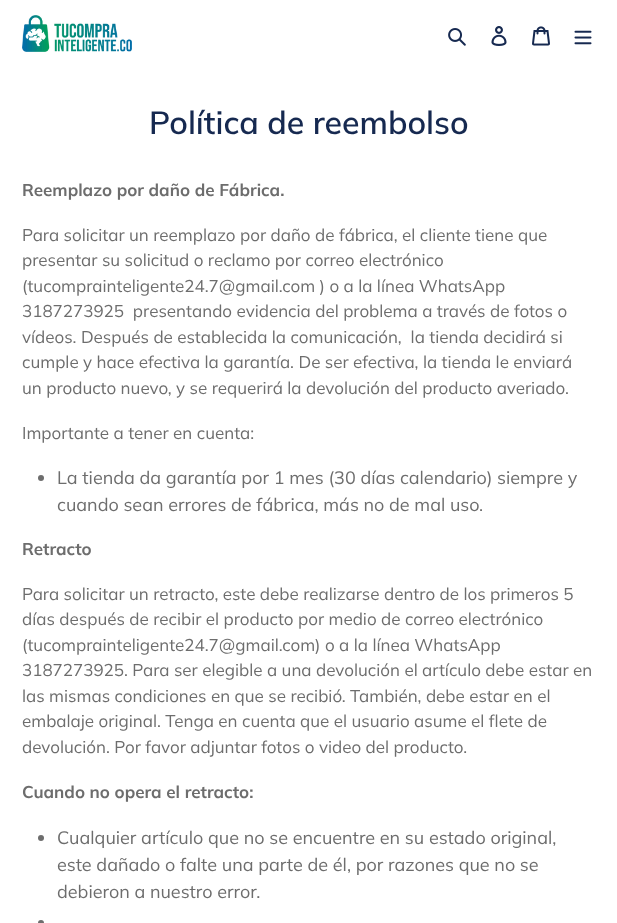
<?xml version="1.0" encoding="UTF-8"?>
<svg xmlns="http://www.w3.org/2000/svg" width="617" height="923">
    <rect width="100%" height="100%" fill="#FFFFFF"/>
    <image x="22" y="15" width="110" height="37" href="img_01.png"/>
    <image x="448" y="28" width="18" height="18" href="img_02.png"/>
    <image x="491" y="26" width="16" height="20" href="img_03.png"/>
    <image x="532" y="26" width="18" height="20" href="img_04.png"/>
    <image x="574" y="30" width="18" height="15" href="img_05.png"/>
    <text x="149" y="134" font-family="Muli" font-size="32" font-weight="600" fill="#162950">Política de reembolso</text>
    <text x="22" y="196" font-family="Muli" font-size="17" font-weight="700" fill="#6D6D6D">Reemplazo por daño de Fábrica.</text>
    <text font-family="Muli" font-size="17" fill="#6D6D6D" xml:space="preserve"><tspan x="22" y="241">Para solicitar un reemplazo por daño de fábrica, el cliente tiene que</tspan><tspan x="22" y="266">presentar su solicitud o reclamo por correo electrónico</tspan><tspan x="22" y="292">(tucomprainteligente24.7@gmail.com ) o a la línea WhatsApp</tspan><tspan x="22" y="317">3187273925  presentando evidencia del problema a través de fotos o</tspan><tspan x="22" y="343">vídeos. Después de establecida la comunicación,  la tienda decidirá si</tspan><tspan x="22" y="368">cumple y hace efectiva la garantía. De ser efectiva, la tienda le enviará</tspan><tspan x="22" y="394">un producto nuevo, y se requerirá la devolución del producto averiado.</tspan></text>
    <text x="22" y="439" font-family="Muli" font-size="17" fill="#6D6D6D">Importante a tener en cuenta:</text>
    <circle cx="41" cy="478" r="3" fill="#6D6D6D"/>
    <text font-family="Muli" font-size="18" fill="#6D6D6D">
        <tspan x="57" y="484">La tienda da garantía por 1 mes (30 días calendario) siempre y</tspan>
        <tspan x="57" y="511">cuando sean errores de fábrica, más no de mal uso.</tspan>
    </text>
    <text x="22" y="555" font-family="Muli" font-size="17" font-weight="700" fill="#6D6D6D">Retracto</text>
    <text font-family="Muli" font-size="17" fill="#6D6D6D">
        <tspan x="22" y="600">Para solicitar un retracto, este debe realizarse dentro de los primeros 5</tspan>
        <tspan x="22" y="625">días después de recibir el producto por medio de correo electrónico</tspan>
        <tspan x="22" y="651">(tucomprainteligente24.7@gmail.com) o a la línea WhatsApp</tspan>
        <tspan x="22" y="676">3187273925. Para ser elegible a una devolución el artículo debe estar en</tspan>
        <tspan x="22" y="702">las mismas condiciones en que se recibió. También, debe estar en el</tspan>
        <tspan x="22" y="727">embalaje original. Tenga en cuenta que el usuario asume el flete de</tspan>
        <tspan x="22" y="753">devolución. Por favor adjuntar fotos o video del producto.</tspan>
    </text>
    <text x="22" y="798" font-family="Muli" font-size="17" font-weight="700" fill="#6D6D6D">Cuando no opera el retracto:</text>
    <circle cx="41" cy="838" r="3" fill="#6D6D6D"/>
    <text font-family="Muli" font-size="18" fill="#6D6D6D">
        <tspan x="57" y="844">Cualquier artículo que no se encuentre en su estado original,</tspan>
        <tspan x="57" y="871">este dañado o falte una parte de él, por razones que no se</tspan>
        <tspan x="57" y="898">debieron a nuestro error.</tspan>
    </text>
    <circle cx="41" cy="923" r="3" fill="#6D6D6D"/>
</svg>
